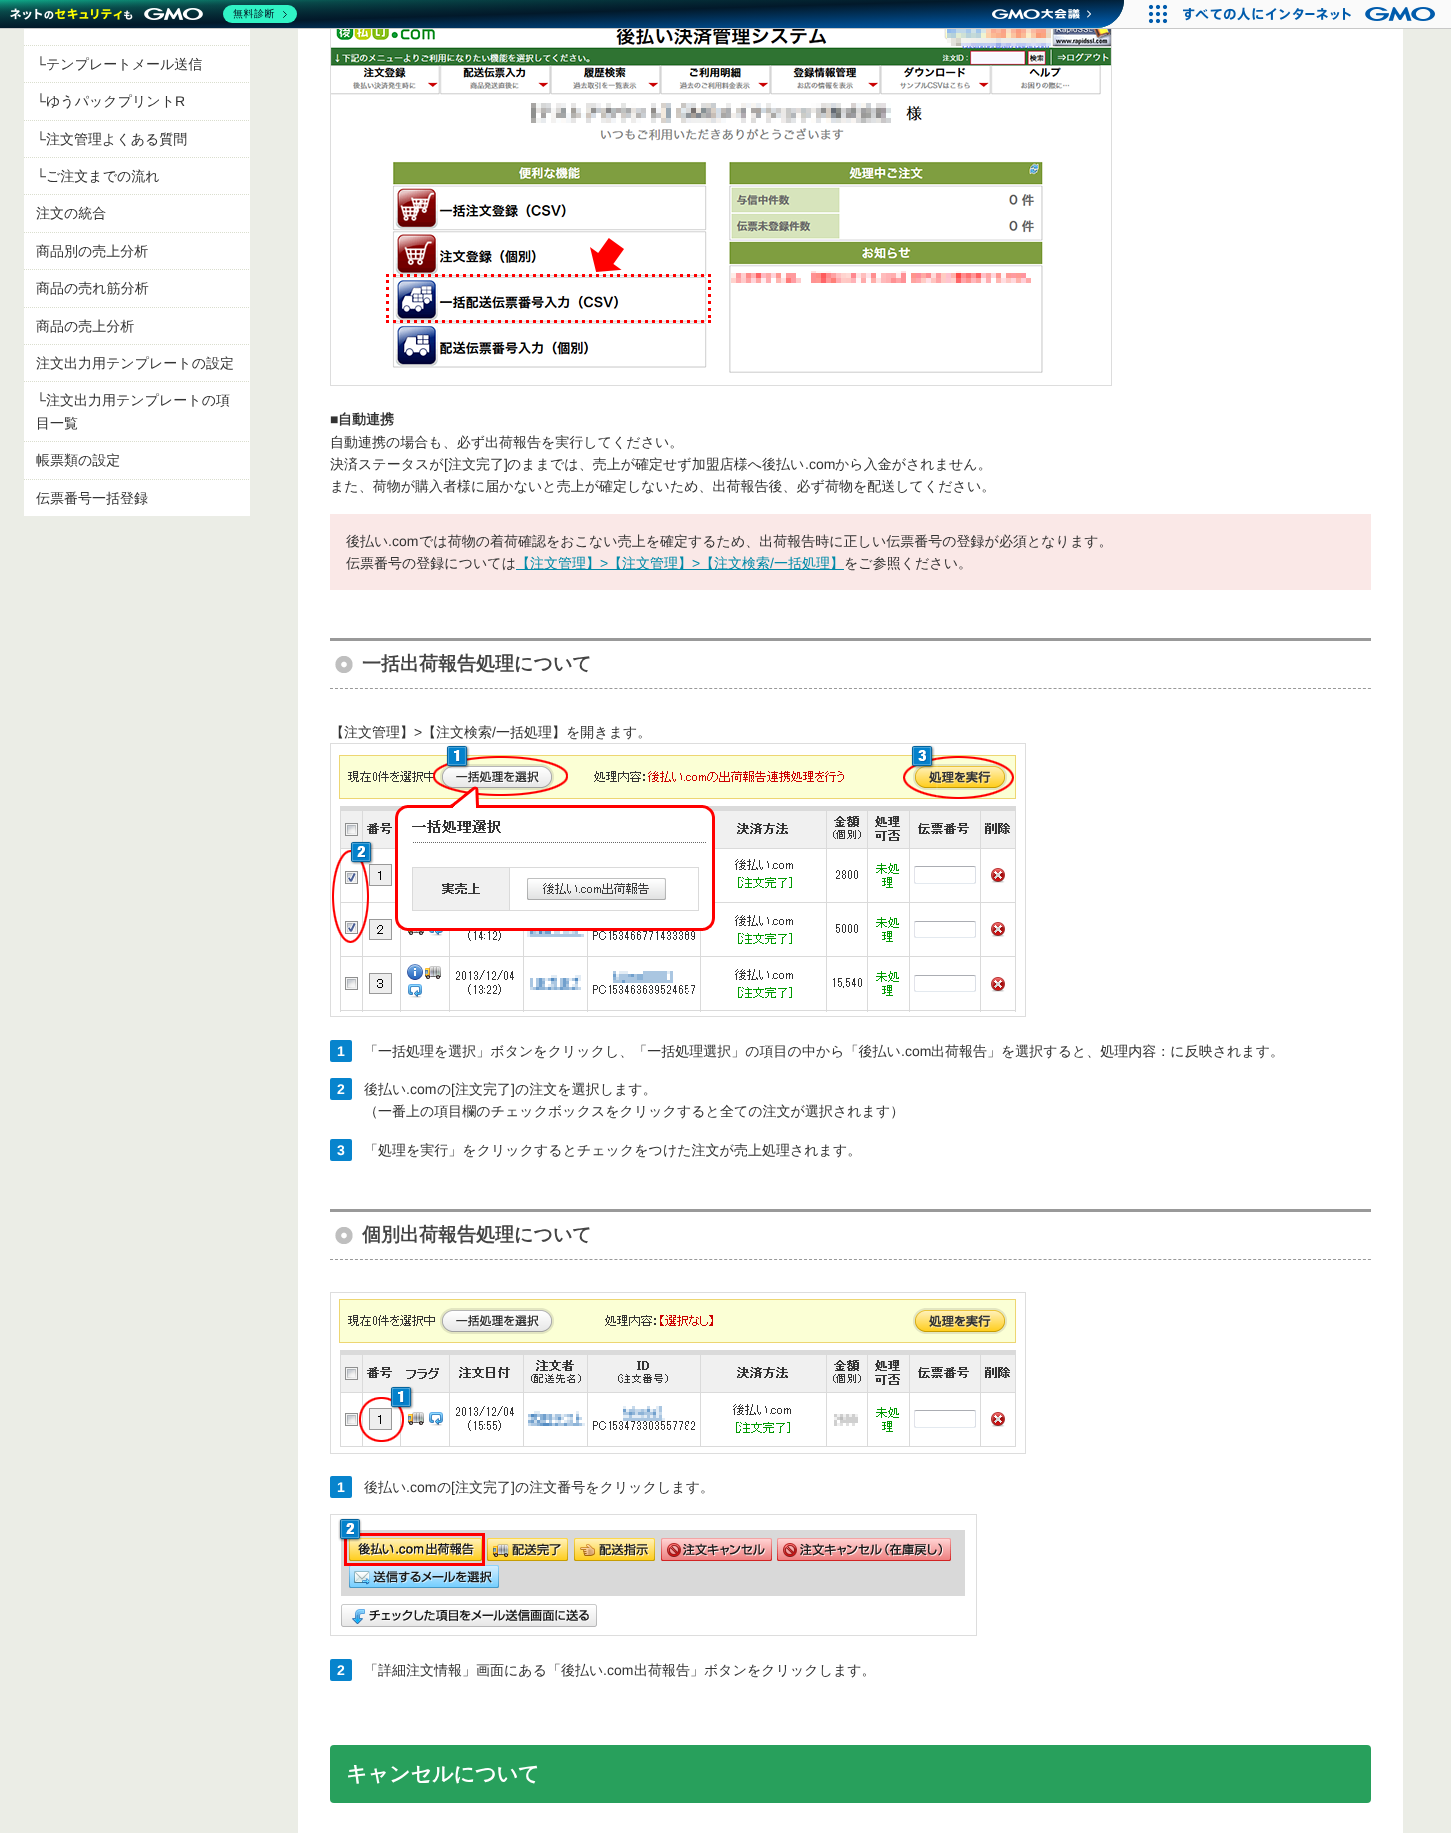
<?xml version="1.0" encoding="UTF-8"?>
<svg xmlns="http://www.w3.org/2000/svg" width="1451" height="1833">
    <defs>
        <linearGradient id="g1" gradientUnits="userSpaceOnUse" x1="561" y1="-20" x2="563" y2="48"><stop offset="0" stop-color="#13D4A5"/><stop offset="0.22" stop-color="#0E7365"/><stop offset="0.52" stop-color="#0B4D4B"/></linearGradient>
        <linearGradient id="g2" gradientUnits="userSpaceOnUse" x1="563" y1="48" x2="561" y2="-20"><stop offset="0" stop-color="#019CD9"/><stop offset="0.1" stop-color="#005BAC"/><stop offset="0.52" stop-color="#02192A"/><stop offset="1" stop-color="#02192A" stop-opacity="0"/></linearGradient>
    </defs>
    <rect width="100%" height="100%" fill="#EBEDE6"/>
    <rect x="298" y="29" width="1105" height="1804" fill="#FFFFFF"/>
    <rect x="330.5" y="12.5" width="781" height="373" fill="none" stroke="#DDDDDD"/>
    <rect x="1096" y="0" width="355" height="28" fill="#FAFAFA"/>
    <rect x="0" y="28" width="1451" height="1" fill="#C8C8C8"/>
    <path d="M 0 0 H 1124 C 1124 15.5 1111.5 28 1096 28 H 0 Z" fill="url(#g1)"/>
    <path d="M 0 0 H 1124 C 1124 15.5 1111.5 28 1096 28 H 0 Z" fill="url(#g2)"/>
    <image x="10" y="8" width="193" height="12" href="img_01.png"/>
    <rect x="223" y="5" width="74" height="18" rx="9" fill="#30F4C5"/>
    <text x="233" y="17" font-family="WenQuanYi Zen Hei" font-size="10" font-weight="500" letter-spacing="0.5" fill="#021725">無料診断</text>
    <path d="M 283.5 11.5 L 286.5 14.5 L 283.5 17.5" fill="none" stroke="#021725" stroke-width="0.9" stroke-linecap="round" stroke-linejoin="round"/>
    <image x="992" y="9" width="99" height="10" href="img_02.png"/>
    <image x="1148" y="4" width="20" height="20" href="img_03.png"/>
    <image x="1183" y="7" width="252" height="14" href="img_04.png"/>
    <rect x="24" y="29" width="226" height="487" fill="#FFFFFF"/>
    <path d="M 24 45.5 H 250" fill="none" stroke="#DADECE" stroke-dasharray="1 1"/>
    <path d="M 24 82.5 H 250" fill="none" stroke="#DADECE" stroke-dasharray="1 1"/>
    <text x="36" y="69" font-family="Liberation Sans" font-size="14" fill="#333333">└</text>
    <text x="46" y="69" font-family="WenQuanYi Zen Hei" font-size="14" font-weight="500" fill="#333333">テンプレートメール送信</text>
    <path d="M 24 120.5 H 250" fill="none" stroke="#DADECE" stroke-dasharray="1 1"/>
    <text x="36" y="106" font-family="Liberation Sans" font-size="14" fill="#333333">└</text>
    <text x="46" y="106" font-family="WenQuanYi Zen Hei" font-size="14" font-weight="500" fill="#333333">ゆうパックプリント</text>
    <text x="175" y="106" font-family="Liberation Sans" font-size="14" fill="#333333">R</text>
    <path d="M 24 157.5 H 250" fill="none" stroke="#DADECE" stroke-dasharray="1 1"/>
    <text x="36" y="144" font-family="Liberation Sans" font-size="14" fill="#333333">└</text>
    <text x="46" y="144" font-family="WenQuanYi Zen Hei" font-size="14" font-weight="500" fill="#333333">注文管理よくある質問</text>
    <path d="M 24 194.5 H 250" fill="none" stroke="#DADECE" stroke-dasharray="1 1"/>
    <text x="36" y="181" font-family="Liberation Sans" font-size="14" fill="#333333">└</text>
    <text x="46" y="181" font-family="WenQuanYi Zen Hei" font-size="14" font-weight="500" fill="#333333">ご注文までの流れ</text>
    <path d="M 24 232.5 H 250" fill="none" stroke="#DADECE" stroke-dasharray="1 1"/>
    <text x="36" y="218" font-family="WenQuanYi Zen Hei" font-size="14" font-weight="500" fill="#333333">注文の統合</text>
    <path d="M 24 269.5 H 250" fill="none" stroke="#DADECE" stroke-dasharray="1 1"/>
    <text x="36" y="256" font-family="WenQuanYi Zen Hei" font-size="14" font-weight="500" fill="#333333">商品別の売上分析</text>
    <path d="M 24 307.5 H 250" fill="none" stroke="#DADECE" stroke-dasharray="1 1"/>
    <text x="36" y="293" font-family="WenQuanYi Zen Hei" font-size="14" font-weight="500" fill="#333333">商品の売れ筋分析</text>
    <path d="M 24 344.5 H 250" fill="none" stroke="#DADECE" stroke-dasharray="1 1"/>
    <text x="36" y="331" font-family="WenQuanYi Zen Hei" font-size="14" font-weight="500" fill="#333333">商品の売上分析</text>
    <path d="M 24 381.5 H 250" fill="none" stroke="#DADECE" stroke-dasharray="1 1"/>
    <text x="36" y="368" font-family="WenQuanYi Zen Hei" font-size="14" font-weight="500" fill="#333333">注文出力用テンプレートの設定</text>
    <path d="M 24 441.5 H 250" fill="none" stroke="#DADECE" stroke-dasharray="1 1"/>
    <text x="36" y="405" font-family="Liberation Sans" font-size="14" fill="#333333">└</text>
    <text x="46" y="405" font-family="WenQuanYi Zen Hei" font-size="14" font-weight="500" fill="#333333">注文出力用テンプレートの項</text>
    <text x="36" y="428" font-family="WenQuanYi Zen Hei" font-size="14" font-weight="500" fill="#333333">目一覧</text>
    <path d="M 24 479.5 H 250" fill="none" stroke="#DADECE" stroke-dasharray="1 1"/>
    <text x="36" y="465" font-family="WenQuanYi Zen Hei" font-size="14" font-weight="500" fill="#333333">帳票類の設定</text>
    <text x="36" y="503" font-family="WenQuanYi Zen Hei" font-size="14" font-weight="500" fill="#333333">伝票番号一括登録</text>
    <image x="331" y="29" width="780" height="344" href="img_05.png"/>
    <text x="330" y="424" font-family="Liberation Sans" font-size="14" font-weight="700" fill="#333333">■</text>
    <text x="338" y="424" font-family="WenQuanYi Zen Hei" font-size="14" font-weight="700" fill="#333333">自動連携</text>
    <text font-family="WenQuanYi Zen Hei" font-size="14" font-weight="500" fill="#333333">
        <tspan x="330" y="447">自動連携の場合も、必ず出荷報告を実行してください。</tspan>
        <tspan x="330" y="469">決済ステータスが</tspan>
    </text>
    <text x="444" y="469" font-family="Liberation Sans" font-size="14" fill="#333333">[</text>
    <text x="448" y="469" font-family="WenQuanYi Zen Hei" font-size="14" font-weight="500" fill="#333333">注文完了</text>
    <text x="504" y="469" font-family="Liberation Sans" font-size="14" fill="#333333">]</text>
    <text x="507" y="469" font-family="WenQuanYi Zen Hei" font-size="14" font-weight="500" fill="#333333">のままでは、売上が確定せず加盟店様へ後払い</text>
    <text x="805" y="469" font-family="Liberation Sans" font-size="14" fill="#333333">.com</text>
    <text x="835" y="469" font-family="WenQuanYi Zen Hei" font-size="14" font-weight="500" fill="#333333">から入金がされません。</text>
    <text x="330" y="491" font-family="WenQuanYi Zen Hei" font-size="14" font-weight="500" fill="#333333">また、荷物が購入者様に届かないと売上が確定しないため、出荷報告後、必ず荷物を配送してください。</text>
    <rect x="330" y="514" width="1041" height="76" fill="#FAE8E7"/>
    <text x="346" y="546" font-family="WenQuanYi Zen Hei" font-size="14" font-weight="500" fill="#333333">後払い</text>
    <text x="388" y="546" font-family="Liberation Sans" font-size="14" fill="#333333">.com</text>
    <text x="419" y="546" font-family="WenQuanYi Zen Hei" font-size="14" font-weight="500" fill="#333333">では荷物の着荷確認をおこない売上を確定するため、出荷報告時に正しい伝票番号の登録が必須となります。</text>
    <text x="346" y="568" font-family="WenQuanYi Zen Hei" font-size="14" font-weight="500" fill="#333333">伝票番号の登録については</text>
    <rect x="516" y="569" width="328" height="1" fill="#008AA8"/>
    <text x="516" y="568" font-family="WenQuanYi Zen Hei" font-size="14" font-weight="500" fill="#008AA8">【注文管理】</text>
    <text x="600" y="568" font-family="Liberation Sans" font-size="14" fill="#008AA8">&gt;</text>
    <text x="608" y="568" font-family="WenQuanYi Zen Hei" font-size="14" font-weight="500" fill="#008AA8">【注文管理】</text>
    <text x="692" y="568" font-family="Liberation Sans" font-size="14" fill="#008AA8">&gt;</text>
    <text x="700" y="568" font-family="WenQuanYi Zen Hei" font-size="14" font-weight="500" fill="#008AA8">【注文検索</text>
    <text x="770" y="568" font-family="Liberation Sans" font-size="14" fill="#008AA8">/</text>
    <text x="774" y="568" font-family="WenQuanYi Zen Hei" font-size="14" font-weight="500" fill="#008AA8">一括処理】</text>
    <text x="844" y="568" font-family="WenQuanYi Zen Hei" font-size="14" font-weight="500" fill="#333333">をご参照ください。</text>
    <image x="335" y="656" width="18" height="17" href="img_06.png"/>
    <rect x="330" y="638" width="1041" height="3" fill="#999999"/>
    <path d="M 330 688.5 H 1371" fill="none" stroke="#999999" stroke-dasharray="3 1.99"/>
    <text x="362" y="670" font-family="WenQuanYi Zen Hei" font-size="19" font-weight="700" fill="#444444">一括出荷報告処理について</text>
    <text x="330" y="737" font-family="WenQuanYi Zen Hei" font-size="14" font-weight="500" fill="#333333">【注文管理】</text>
    <text x="414" y="737" font-family="Liberation Sans" font-size="14" fill="#333333">&gt;</text>
    <text x="422" y="737" font-family="WenQuanYi Zen Hei" font-size="14" font-weight="500" fill="#333333">【注文検索</text>
    <text x="492" y="737" font-family="Liberation Sans" font-size="14" fill="#333333">/</text>
    <text x="496" y="737" font-family="WenQuanYi Zen Hei" font-size="14" font-weight="500" fill="#333333">一括処理】を開きます。</text>
    <rect x="330.5" y="743.5" width="695" height="273" fill="none" stroke="#DDDDDD"/>
    <image x="332" y="745" width="684" height="267" href="img_07.png"/>
    <rect x="330" y="1040" width="22" height="22" rx="2" fill="#0784CD"/>
    <text x="337" y="1056" font-family="Liberation Sans" font-size="14" font-weight="700" fill="#FFFFFF">1</text>
    <text x="364" y="1056" font-family="WenQuanYi Zen Hei" font-size="14" font-weight="500" fill="#333333">「一括処理を選択」ボタンをクリックし、「一括処理選択」の項目の中から「後払い</text>
    <text x="901" y="1056" font-family="Liberation Sans" font-size="14" fill="#333333">.com</text>
    <text x="931" y="1056" font-family="WenQuanYi Zen Hei" font-size="14" font-weight="500" fill="#333333">出荷報告」を選択すると、処理内容：に反映されます。</text>
    <rect x="330" y="1078" width="22" height="22" rx="2" fill="#0784CD"/>
    <text x="337" y="1094" font-family="Liberation Sans" font-size="14" font-weight="700" fill="#FFFFFF">2</text>
    <text x="364" y="1094" font-family="WenQuanYi Zen Hei" font-size="14" font-weight="500" fill="#333333">後払い</text>
    <text x="406" y="1094" font-family="Liberation Sans" font-size="14" fill="#333333">.com</text>
    <text x="437" y="1094" font-family="WenQuanYi Zen Hei" font-size="14" font-weight="500" fill="#333333">の</text>
    <text x="451" y="1094" font-family="Liberation Sans" font-size="14" fill="#333333">[</text>
    <text x="455" y="1094" font-family="WenQuanYi Zen Hei" font-size="14" font-weight="500" fill="#333333">注文完了</text>
    <text x="511" y="1094" font-family="Liberation Sans" font-size="14" fill="#333333">]</text>
    <text x="515" y="1094" font-family="WenQuanYi Zen Hei" font-size="14" font-weight="500" fill="#333333">の注文を選択します。</text>
    <text x="364" y="1116" font-family="WenQuanYi Zen Hei" font-size="14" font-weight="500" fill="#333333">（一番上の項目欄のチェックボックスをクリックすると全ての注文が選択されます）</text>
    <rect x="330" y="1139" width="22" height="22" rx="2" fill="#0784CD"/>
    <text x="337" y="1155" font-family="Liberation Sans" font-size="14" font-weight="700" fill="#FFFFFF">3</text>
    <text x="364" y="1155" font-family="WenQuanYi Zen Hei" font-size="14" font-weight="500" fill="#333333">「処理を実行」をクリックするとチェックをつけた注文が売上処理されます。</text>
    <image x="335" y="1227" width="18" height="17" href="img_06.png"/>
    <rect x="330" y="1209" width="1041" height="3" fill="#999999"/>
    <path d="M 330 1259.5 H 1371" fill="none" stroke="#999999" stroke-dasharray="3 1.99"/>
    <text x="362" y="1241" font-family="WenQuanYi Zen Hei" font-size="19" font-weight="700" fill="#444444">個別出荷報告処理について</text>
    <rect x="330.5" y="1292.5" width="695" height="161" fill="none" stroke="#DDDDDD"/>
    <image x="339" y="1299" width="677" height="148" href="img_08.png"/>
    <rect x="330" y="1476" width="22" height="22" rx="2" fill="#0784CD"/>
    <text x="337" y="1492" font-family="Liberation Sans" font-size="14" font-weight="700" fill="#FFFFFF">1</text>
    <text x="364" y="1492" font-family="WenQuanYi Zen Hei" font-size="14" font-weight="500" fill="#333333">後払い</text>
    <text x="406" y="1492" font-family="Liberation Sans" font-size="14" fill="#333333">.com</text>
    <text x="437" y="1492" font-family="WenQuanYi Zen Hei" font-size="14" font-weight="500" fill="#333333">の</text>
    <text x="451" y="1492" font-family="Liberation Sans" font-size="14" fill="#333333">[</text>
    <text x="455" y="1492" font-family="WenQuanYi Zen Hei" font-size="14" font-weight="500" fill="#333333">注文完了</text>
    <text x="511" y="1492" font-family="Liberation Sans" font-size="14" fill="#333333">]</text>
    <text x="515" y="1492" font-family="WenQuanYi Zen Hei" font-size="14" font-weight="500" fill="#333333">の注文番号をクリックします。</text>
    <rect x="330.5" y="1514.5" width="646" height="121" fill="none" stroke="#DDDDDD"/>
    <image x="338" y="1518" width="627" height="109" href="img_09.png"/>
    <rect x="330" y="1659" width="22" height="22" rx="2" fill="#0784CD"/>
    <text x="337" y="1675" font-family="Liberation Sans" font-size="14" font-weight="700" fill="#FFFFFF">2</text>
    <text x="364" y="1675" font-family="WenQuanYi Zen Hei" font-size="14" font-weight="500" fill="#333333">「詳細注文情報」画面にある「後払い</text>
    <text x="603" y="1675" font-family="Liberation Sans" font-size="14" fill="#333333">.com</text>
    <text x="634" y="1675" font-family="WenQuanYi Zen Hei" font-size="14" font-weight="500" fill="#333333">出荷報告」ボタンをクリックします。</text>
    <rect x="330" y="1745" width="1041" height="58" rx="4" fill="#28A05C"/>
    <text x="346" y="1781" font-family="WenQuanYi Zen Hei" font-size="21" font-weight="700" fill="#FFFFFF">キャンセルについて</text>
</svg>
